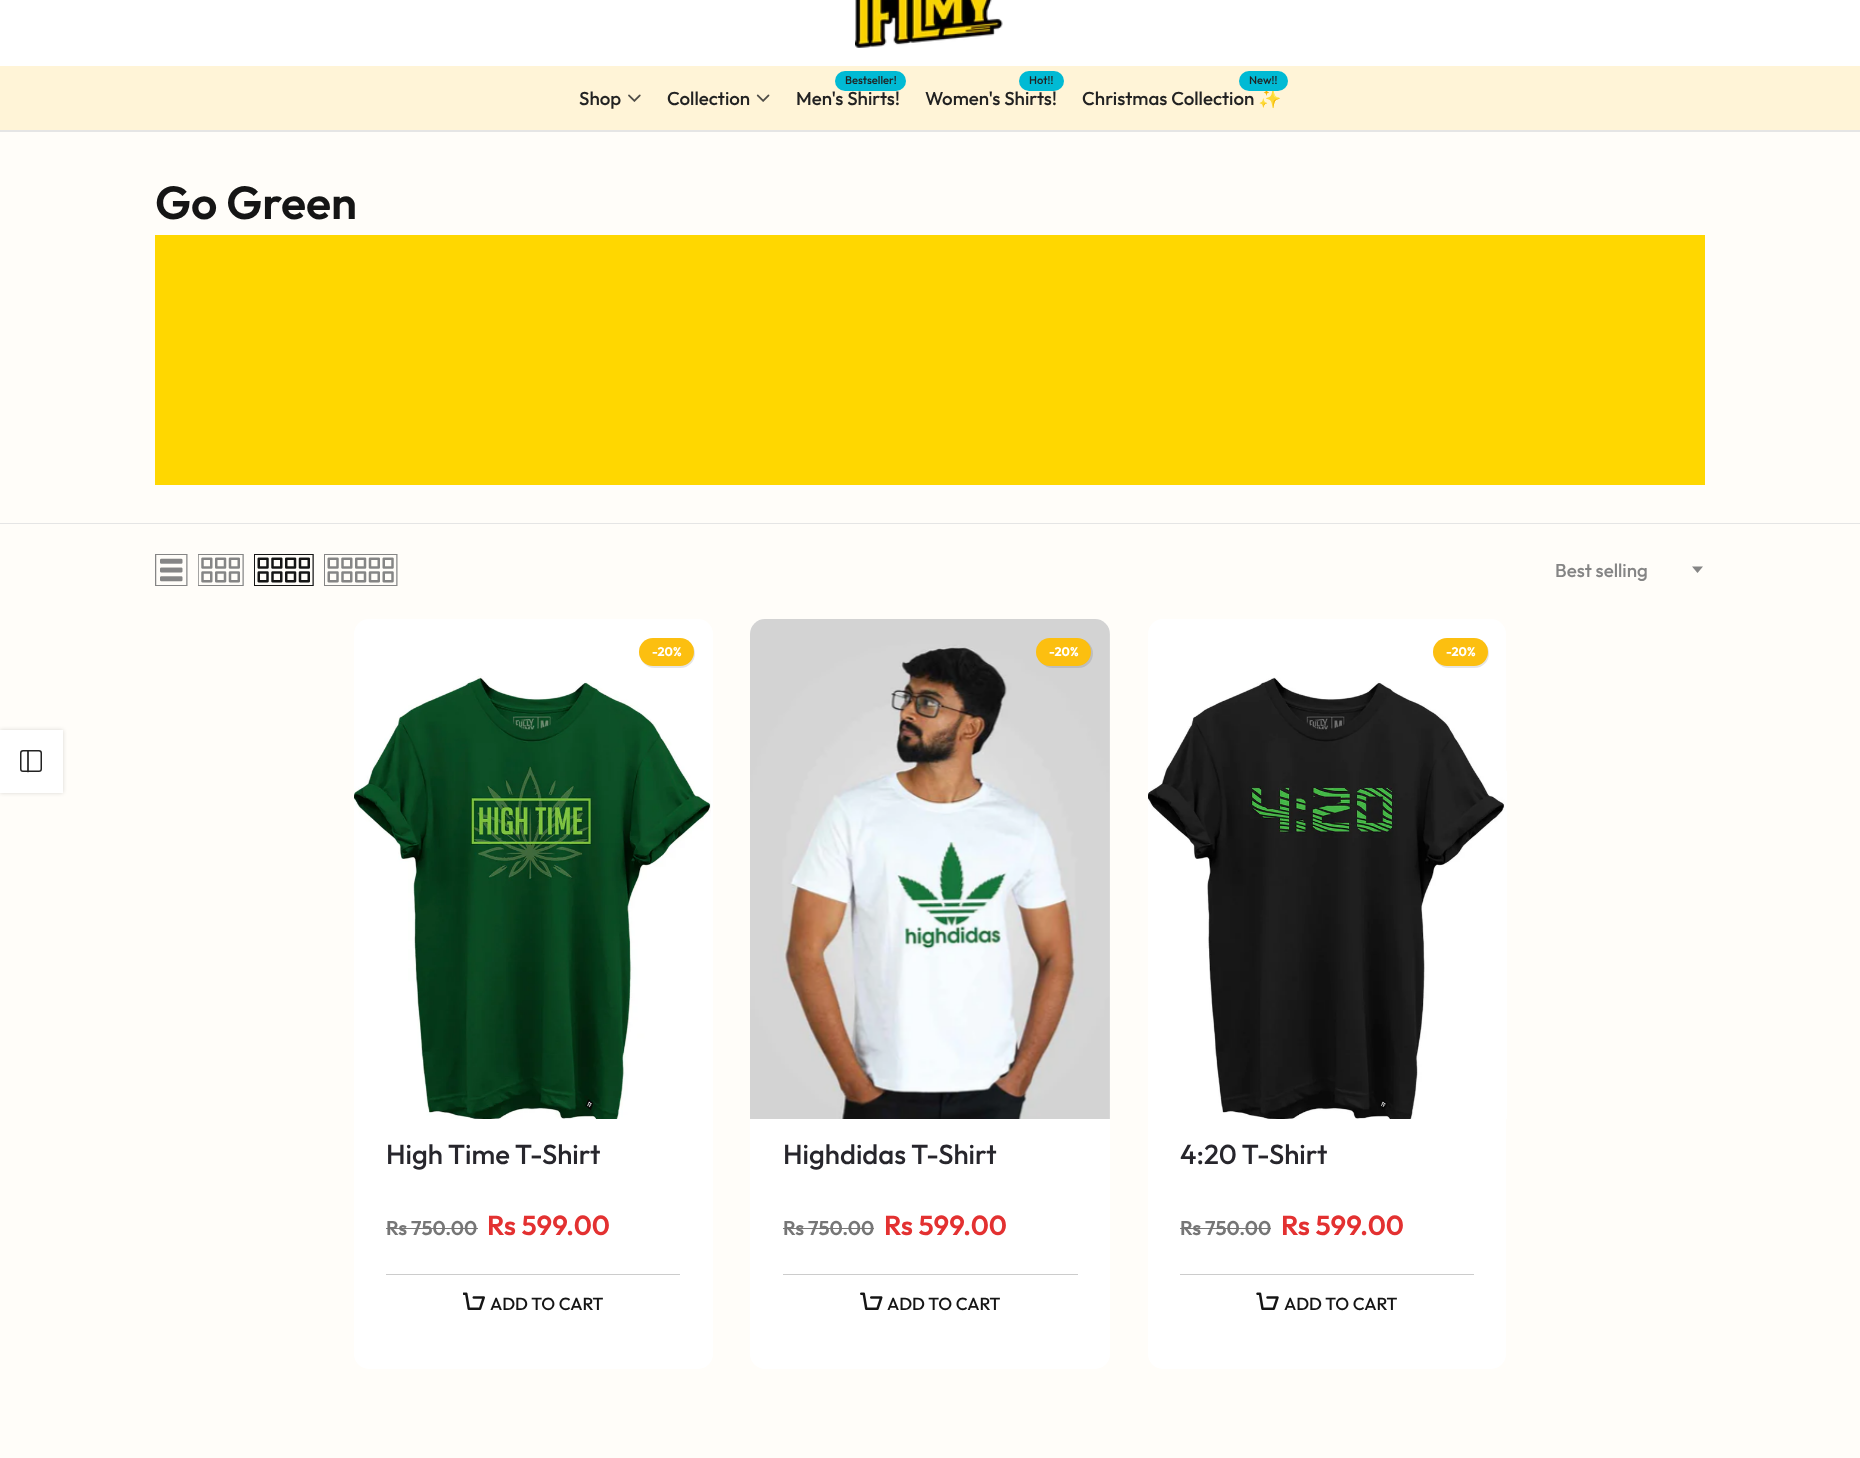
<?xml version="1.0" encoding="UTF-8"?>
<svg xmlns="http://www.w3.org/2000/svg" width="1860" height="1458">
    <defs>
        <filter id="blur1" x="-50%" y="-200%" width="200%" height="500%"><feGaussianBlur stdDeviation="2"/></filter>
        <filter id="blur2" x="-50%" y="-200%" width="200%" height="500%"><feGaussianBlur stdDeviation="0.5"/></filter>
    </defs>
    <rect width="100%" height="100%" fill="#FFFDF9"/>
    <rect x="0" y="0" width="1860" height="66" fill="#FFFFFF"/>
    <rect x="0" y="130" width="1860" height="2" fill="#E5E5E5"/>
    <image x="855" y="0" width="148" height="48" href="img_01.png"/>
    <rect x="0" y="66" width="1860" height="64" fill="#FFF4D7"/>
    <text x="579" y="105" font-family="Outfit" font-size="18.75" font-weight="500" fill="#222222">Shop</text>
    <image x="628" y="94" width="13" height="8" href="img_02.png"/>
    <text x="667" y="105" font-family="Outfit" font-size="18.75" font-weight="500" fill="#222222">Collection</text>
    <image x="756" y="94" width="14" height="8" href="img_03.png"/>
    <rect x="835" y="71" width="71" height="20" rx="10" fill="#01BAD4"/>
    <text x="845" y="84" font-family="Outfit" font-size="11.25" font-weight="500" fill="#222222">Bestseller!</text>
    <text x="796" y="105" font-family="Outfit" font-size="18.75" font-weight="500" fill="#222222">Men's Shirts!</text>
    <rect x="1019" y="71" width="45" height="20" rx="10" fill="#01BAD4"/>
    <text x="1029" y="84" font-family="Outfit" font-size="11.25" font-weight="500" fill="#222222">Hot!!</text>
    <text x="925" y="105" font-family="Outfit" font-size="18.75" font-weight="500" fill="#222222">Women's Shirts!</text>
    <text x="1258" y="105" font-family="Noto Color Emoji" font-size="18.75" fill="#222222">✨</text>
    <rect x="1239" y="71" width="49" height="20" rx="10" fill="#01BAD4"/>
    <text x="1249" y="84" font-family="Outfit" font-size="11.25" font-weight="500" fill="#222222">New!!</text>
    <text x="1082" y="105" font-family="Outfit" font-size="18.75" font-weight="500" fill="#222222">Christmas Collection</text>
    <rect x="0" y="523" width="1860" height="1" fill="#E5E5E5"/>
    <text x="155" y="219" font-family="Outfit" font-size="46.25" font-weight="600" fill="#151515">Go Green</text>
    <rect x="155" y="235" width="1550" height="250" fill="#FFD700"/>
    <rect x="0" y="730" width="63" height="63" fill="#000000" fill-opacity="0.15" filter="url(#blur1)"/>
    <rect x="0" y="730" width="63" height="63" fill="#FFFFFF"/>
    <rect x="20.75" y="750.75" width="20.5" height="20.5" rx="2.25" fill="none" stroke="#222222" stroke-width="1.5"/>
    <path d="M 28 751 V 771.5" fill="none" stroke="#222222" stroke-width="1.7" stroke-linecap="round" stroke-linejoin="round"/>
    <image x="155" y="554" width="33" height="32" href="img_04.png"/>
    <image x="198" y="554" width="46" height="32" href="img_05.png"/>
    <image x="254" y="554" width="60" height="32" href="img_06.png"/>
    <image x="324" y="554" width="74" height="32" href="img_07.png"/>
    <text x="1555" y="577" font-family="Outfit" font-size="18.75" font-weight="500" fill="#858585">Best selling</text>
    <path d="M 1692 566.5 H 1703 L 1697.5 573 Z" fill="#858585"/>
    <rect x="354" y="619" width="359" height="750" rx="15" fill="#FFFFFF"/>
    <rect x="640" y="639" width="55" height="29" rx="14.5" fill="#000000" fill-opacity="0.1" filter="url(#blur2)"/>
    <rect x="639" y="638" width="55" height="28" rx="14" fill="#FCBF10"/>
    <text x="652" y="656" font-family="Outfit" font-size="12.5" font-weight="700" fill="#FFFFFF">-20%</text>
    <image x="354" y="676" width="357" height="443" href="img_08.png"/>
    <text x="386" y="1164" font-family="Outfit" font-size="27.5" font-weight="500" fill="#27262C">High Time T-Shirt</text>
    <text x="386" y="1235" font-family="Outfit" font-size="20" font-weight="600" fill="#767676">Rs 750.00</text>
    <rect x="386" y="1228" width="92" height="1" fill="#767676"/>
    <text x="487" y="1235" font-family="Outfit" font-size="27.5" font-weight="600" fill="#E33131">Rs 599.00</text>
    <rect x="386" y="1274" width="294" height="1" fill="#CCCCCC"/>
    <image x="463" y="1292" width="22" height="18" href="img_09.png"/>
    <text x="490" y="1310" font-family="Outfit" font-size="17.5" font-weight="500" fill="#151515">ADD TO CART</text>
    <rect x="750" y="619" width="360" height="750" rx="15" fill="#FFFFFF"/>
    <image x="750" y="619" width="360" height="500" href="img_10.png"/>
    <rect x="1038" y="639" width="55" height="29" rx="14.5" fill="#000000" fill-opacity="0.1" filter="url(#blur2)"/>
    <rect x="1036" y="638" width="55" height="28" rx="14" fill="#FCBF10"/>
    <text x="1049" y="656" font-family="Outfit" font-size="12.5" font-weight="700" fill="#FFFFFF">-20%</text>
    <text x="783" y="1164" font-family="Outfit" font-size="27.5" font-weight="500" fill="#27262C">Highdidas T-Shirt</text>
    <text x="783" y="1235" font-family="Outfit" font-size="20" font-weight="600" fill="#767676">Rs 750.00</text>
    <rect x="783" y="1228" width="91" height="1" fill="#767676"/>
    <text x="884" y="1235" font-family="Outfit" font-size="27.5" font-weight="600" fill="#E33131">Rs 599.00</text>
    <rect x="783" y="1274" width="295" height="1" fill="#CCCCCC"/>
    <image x="860" y="1292" width="23" height="18" href="img_11.png"/>
    <text x="887" y="1310" font-family="Outfit" font-size="17.5" font-weight="500" fill="#151515">ADD TO CART</text>
    <rect x="1148" y="619" width="358" height="750" rx="15" fill="#FFFFFF"/>
    <rect x="1434" y="639" width="55" height="29" rx="14.5" fill="#000000" fill-opacity="0.1" filter="url(#blur2)"/>
    <rect x="1433" y="638" width="55" height="28" rx="14" fill="#FCBF10"/>
    <text x="1446" y="656" font-family="Outfit" font-size="12.5" font-weight="700" fill="#FFFFFF">-20%</text>
    <image x="1148" y="677" width="359" height="442" href="img_12.png"/>
    <text x="1180" y="1164" font-family="Outfit" font-size="27.5" font-weight="500" fill="#27262C">4:20 T-Shirt</text>
    <text x="1180" y="1235" font-family="Outfit" font-size="20" font-weight="600" fill="#767676">Rs 750.00</text>
    <rect x="1180" y="1228" width="91" height="1" fill="#767676"/>
    <text x="1281" y="1235" font-family="Outfit" font-size="27.5" font-weight="600" fill="#E33131">Rs 599.00</text>
    <rect x="1180" y="1274" width="294" height="1" fill="#CCCCCC"/>
    <image x="1256" y="1292" width="23" height="18" href="img_13.png"/>
    <text x="1284" y="1310" font-family="Outfit" font-size="17.5" font-weight="500" fill="#151515">ADD TO CART</text>
</svg>
